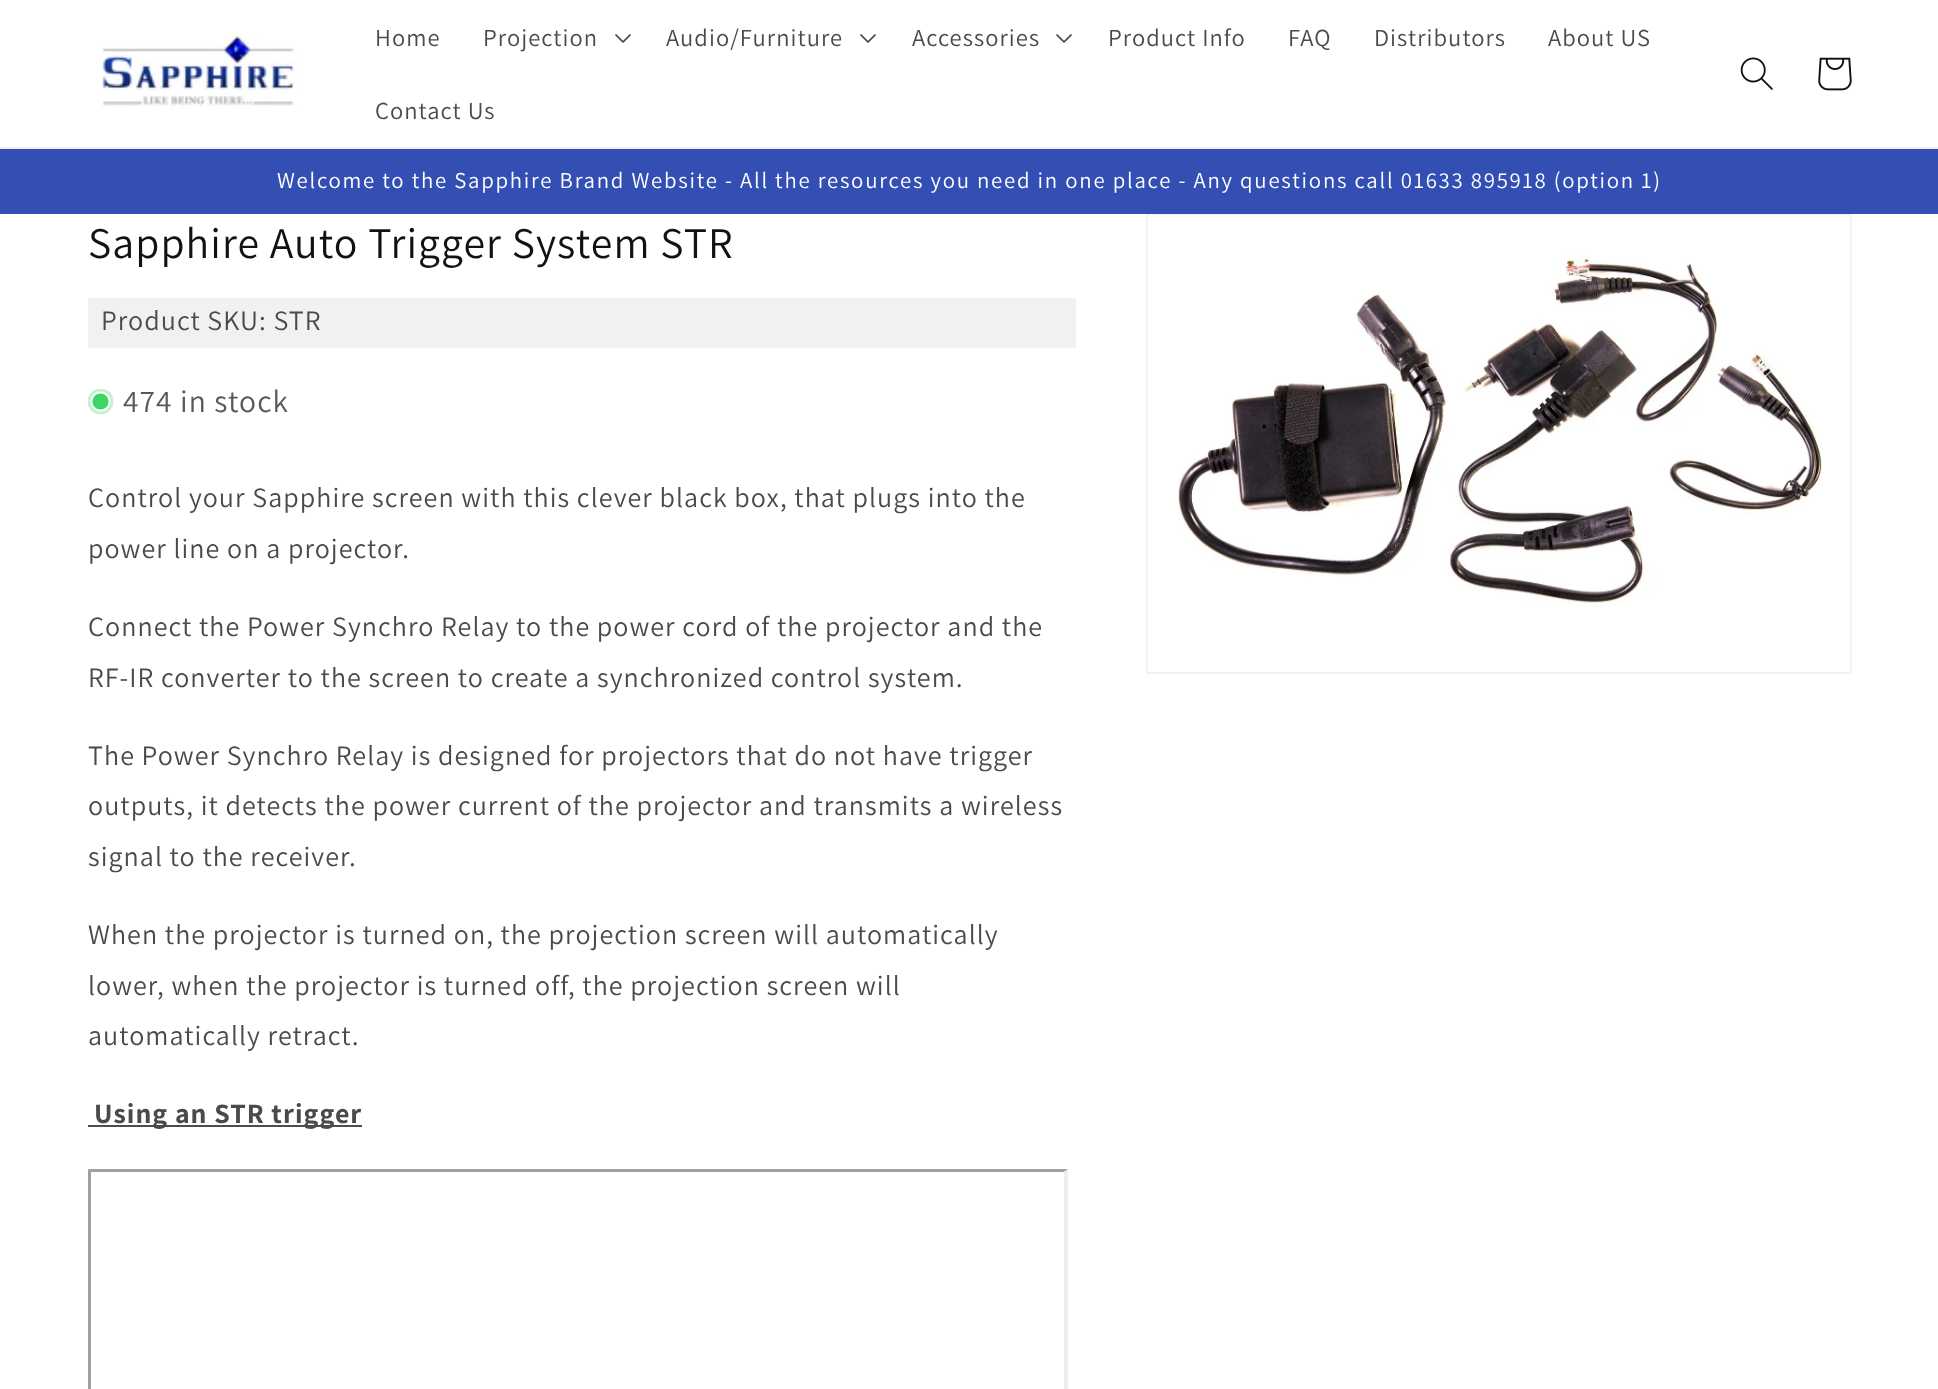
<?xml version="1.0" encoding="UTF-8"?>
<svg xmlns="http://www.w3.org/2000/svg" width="1938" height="1389">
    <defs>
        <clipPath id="clip1"><rect x="88" y="389" width="26" height="26"/></clipPath>
    </defs>
    <rect width="100%" height="100%" fill="#FFFFFF"/>
    <rect x="0" y="147" width="1938" height="2" fill="#ECECEC"/>
    <image x="102" y="33" width="197" height="75" href="img_01.png"/>
    <text x="375" y="46" font-family="Assistant" font-size="24.5" letter-spacing="1.05" fill="#4A4A4A">Home</text>
    <text x="483" y="46" font-family="Assistant" font-size="24.5" letter-spacing="1.05" fill="#4A4A4A">Projection</text>
    <image x="615" y="34" width="16" height="9" href="img_02.png"/>
    <text x="666" y="46" font-family="Assistant" font-size="24.5" letter-spacing="1.05" fill="#4A4A4A">Audio/Furniture</text>
    <image x="860" y="34" width="16" height="9" href="img_02.png"/>
    <text x="912" y="46" font-family="Assistant" font-size="24.5" letter-spacing="1.05" fill="#4A4A4A">Accessories</text>
    <image x="1056" y="34" width="16" height="9" href="img_02.png"/>
    <text x="1108" y="46" font-family="Assistant" font-size="24.5" letter-spacing="1.05" fill="#4A4A4A">Product Info</text>
    <text x="1288" y="46" font-family="Assistant" font-size="24.5" letter-spacing="1.05" fill="#4A4A4A">FAQ</text>
    <text x="1374" y="46" font-family="Assistant" font-size="24.5" letter-spacing="1.05" fill="#4A4A4A">Distributors</text>
    <text x="1548" y="46" font-family="Assistant" font-size="24.5" letter-spacing="1.05" fill="#4A4A4A">About US</text>
    <text x="375" y="119" font-family="Assistant" font-size="24.5" letter-spacing="1.05" fill="#4A4A4A">Contact Us</text>
    <image x="1740" y="57" width="33" height="33" href="img_03.png"/>
    <image x="1818" y="57" width="34" height="34" href="img_04.png"/>
    <rect x="0" y="149" width="1938" height="65" fill="#334FB4"/>
    <text x="277" y="188" font-family="Assistant" font-size="22.75" letter-spacing="1.75" fill="#FFFFFF">Welcome to the Sapphire Brand Website - All the resources you need in one place - Any questions call 01633 895918 (option 1)</text>
    <text x="88" y="258" font-family="Assistant" font-size="43.75" letter-spacing="1.05" fill="#121212">Sapphire Auto Trigger System STR</text>
    <rect x="88" y="298" width="988" height="50" fill="#F1F1F1"/>
    <text x="101" y="330" font-family="Assistant" font-size="28" letter-spacing="1.05" fill="#4A4A4A">Product SKU: STR</text>
    <g clip-path="url(#clip1)">
        <circle cx="100.5" cy="401.5" r="13" fill="#C5F3CF"/>
    </g>
    <circle cx="100.5" cy="401.5" r="9" fill="#3ED660" stroke="#FFFFFF" stroke-width="1.8"/>
    <text x="123" y="412" font-family="Assistant" font-size="31.5" letter-spacing="1.05" fill="#595959">474 in stock</text>
    <text font-family="Assistant" font-size="28" letter-spacing="1.05" fill="#4A4A4A">
        <tspan x="88" y="507">Control your Sapphire screen with this clever black box, that plugs into the</tspan>
        <tspan x="88" y="558">power line on a projector.</tspan>
    </text>
    <text font-family="Assistant" font-size="28" letter-spacing="1.05" fill="#4A4A4A">
        <tspan x="88" y="636">Connect the Power Synchro Relay to the power cord of the projector and the</tspan>
        <tspan x="88" y="687">RF-IR converter to the screen to create a synchronized control system.</tspan>
    </text>
    <text font-family="Assistant" font-size="28" letter-spacing="1.05" fill="#4A4A4A">
        <tspan x="88" y="765">The Power Synchro Relay is designed for projectors that do not have trigger</tspan>
        <tspan x="88" y="815">outputs, it detects the power current of the projector and transmits a wireless</tspan>
        <tspan x="88" y="866">signal to the receiver.</tspan>
    </text>
    <text font-family="Assistant" font-size="28" letter-spacing="1.05" fill="#4A4A4A">
        <tspan x="88" y="944">When the projector is turned on, the projection screen will automatically</tspan>
        <tspan x="88" y="995">lower, when the projector is turned off, the projection screen will</tspan>
        <tspan x="88" y="1045">automatically retract.</tspan>
    </text>
    <rect x="88" y="1125" width="274" height="2" fill="#4D4D4D"/>
    <text x="94" y="1123" font-family="Assistant" font-size="28" font-weight="700" letter-spacing="1.05" fill="#4A4A4A">Using an STR trigger</text>
    <path d="M 88 1169 H 1068 L 1064 1172 H 91 Z" fill="#9F9F9F"/>
    <path d="M 88 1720 V 1169 L 91 1172 V 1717 Z" fill="#9F9F9F"/>
    <path d="M 1068 1169 V 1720 L 1064 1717 V 1172 Z" fill="#EEEEEE"/>
    <rect x="1147" y="215" width="704" height="458" fill="none" stroke="#F3F3F3" stroke-width="2"/>
    <image x="1148" y="215" width="702" height="389" href="img_05.png"/>
</svg>
